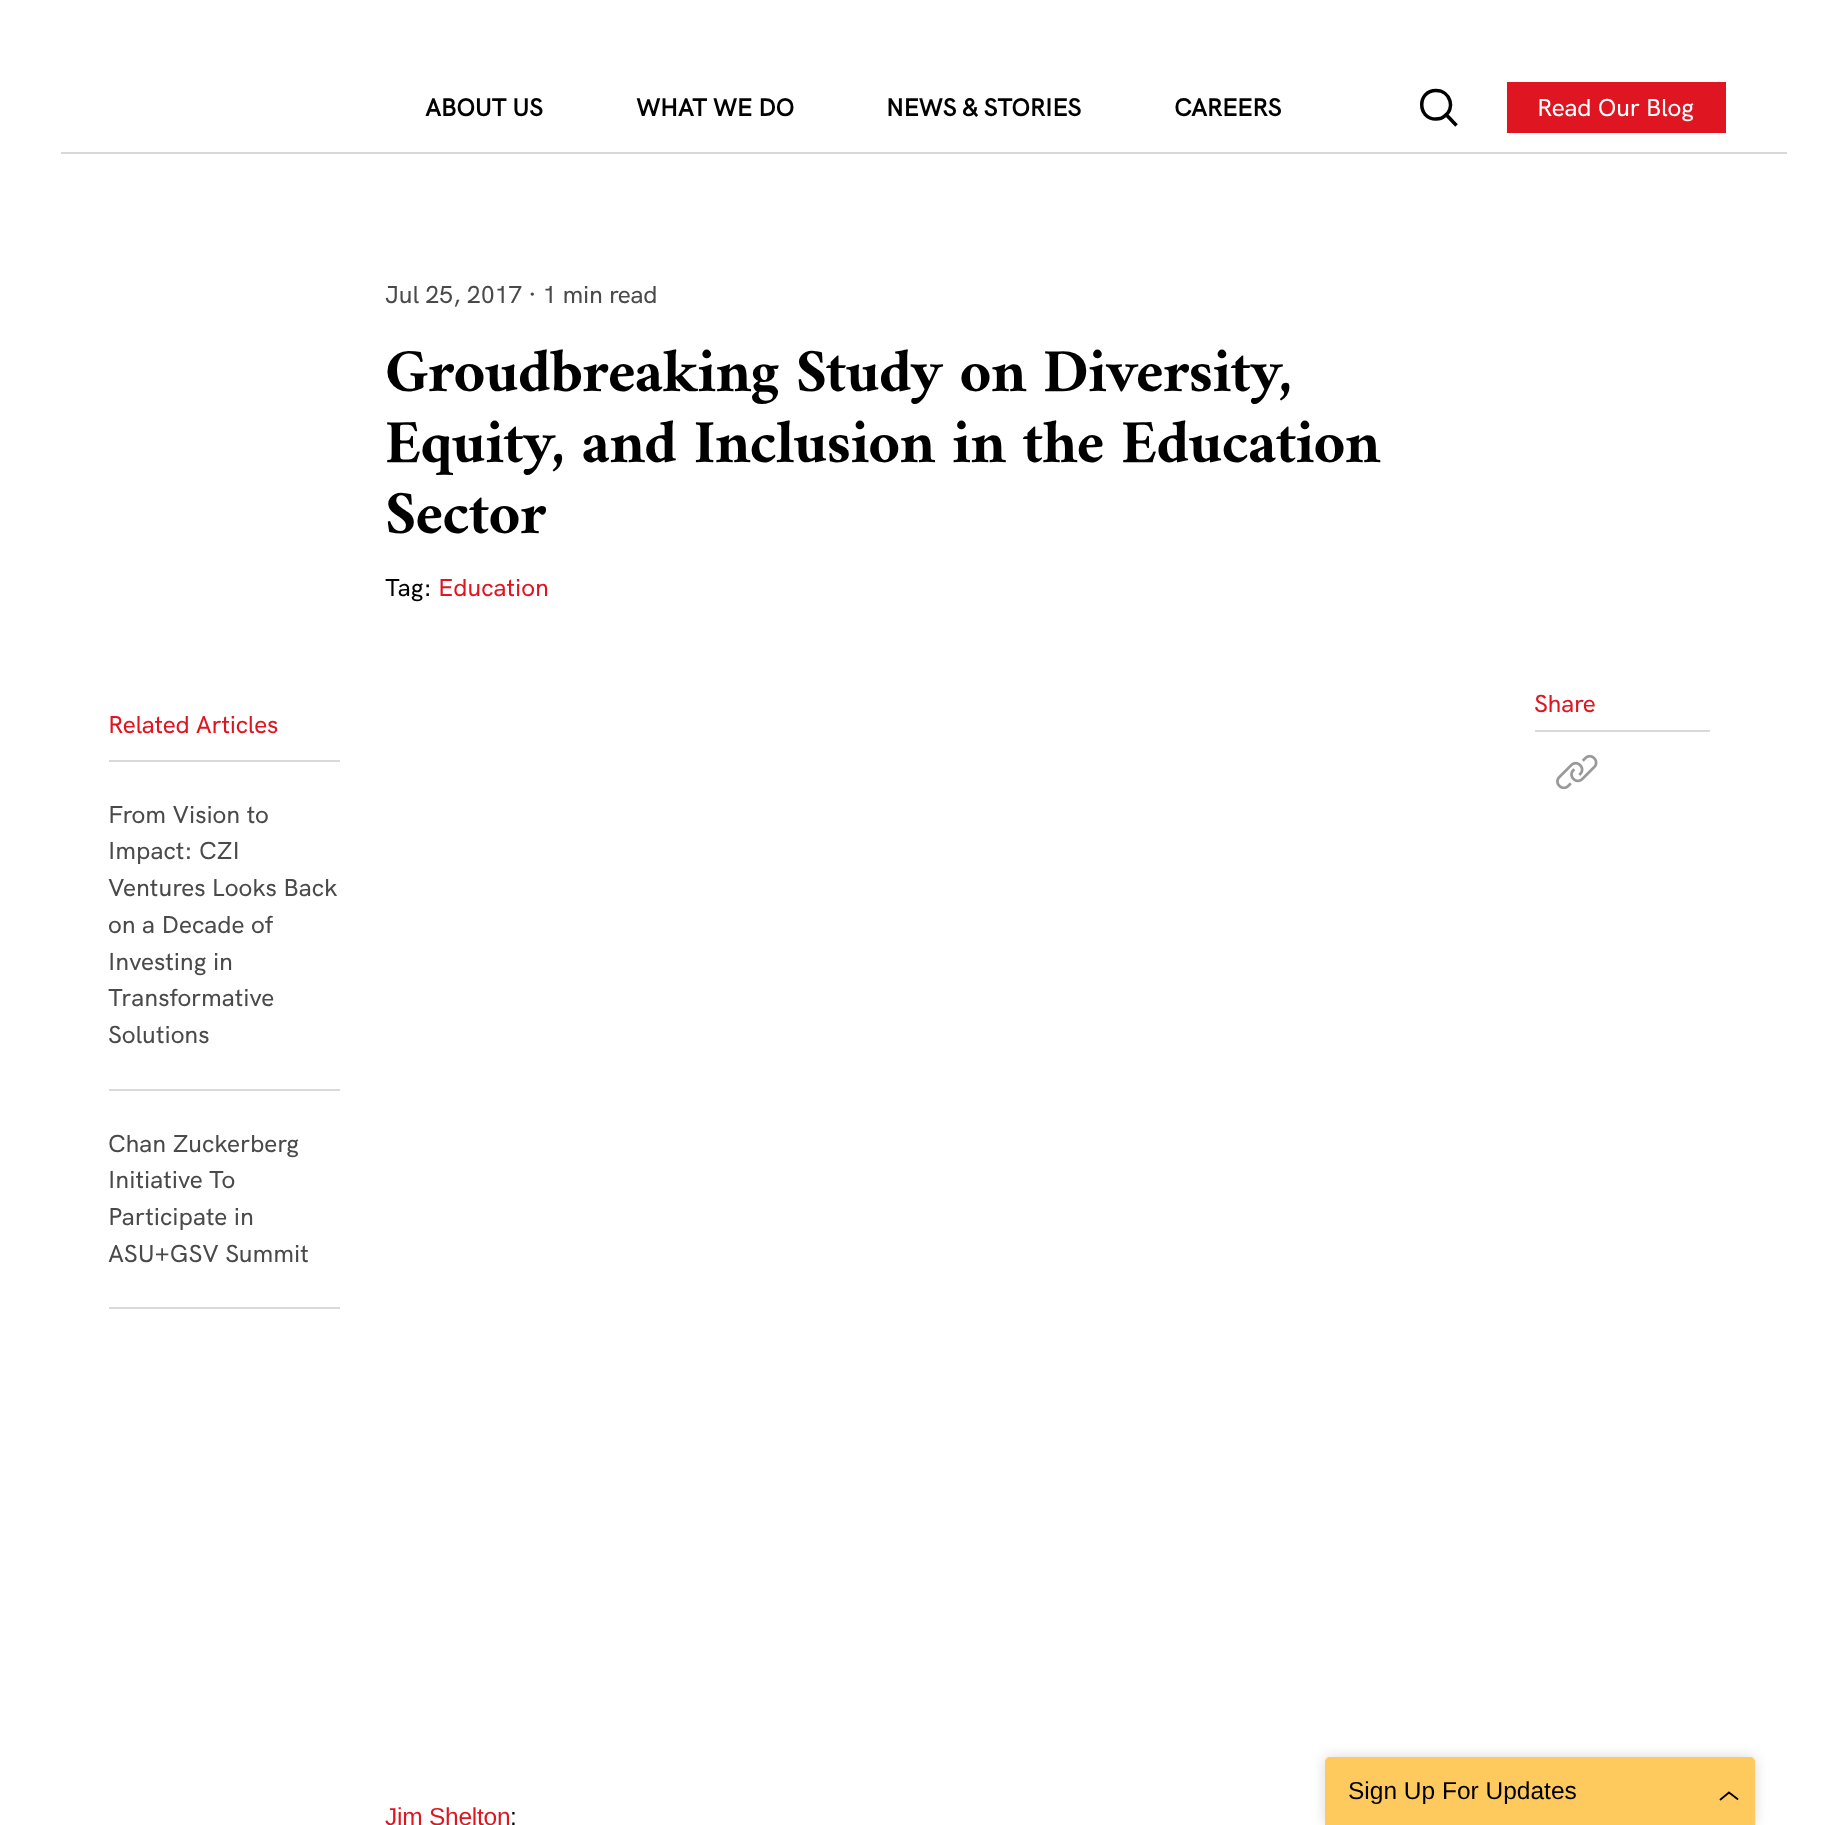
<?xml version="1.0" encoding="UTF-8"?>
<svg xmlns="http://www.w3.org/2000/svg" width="1848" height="1825">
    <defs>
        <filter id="blur1" x="-50%" y="-200%" width="200%" height="500%"><feGaussianBlur stdDeviation="7"/></filter>
    </defs>
    <rect width="100%" height="100%" fill="#FFFFFF"/>
    <text x="425" y="116" font-family="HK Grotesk" font-size="24.5" font-weight="700" letter-spacing="-0.2" fill="#000000">ABOUT US</text>
    <text x="636" y="116" font-family="HK Grotesk" font-size="24.5" font-weight="700" letter-spacing="-0.2" fill="#000000">WHAT WE DO</text>
    <text x="886" y="116" font-family="HK Grotesk" font-size="24.5" font-weight="700" letter-spacing="-0.2" fill="#000000">NEWS &amp; STORIES</text>
    <text x="1174" y="116" font-family="HK Grotesk" font-size="24.5" font-weight="700" letter-spacing="-0.2" fill="#000000">CAREERS</text>
    <path d="M 1446.5 115 L 1456.5 125.5 M 1436 119 C 1439 119 1442 118.5 1444 116.5 C 1456 109 1450.5 90.5 1436 90.5 C 1417 90.5 1417 119 1436 119 Z" fill="none" stroke="#000000" stroke-width="3.5"/>
    <rect x="1507" y="82" width="219" height="51" fill="#DF1621"/>
    <text x="1537" y="116" font-family="HK Grotesk" font-size="24.5" font-weight="500" letter-spacing="-0.2" fill="#FFFFFF">Read Our Blog</text>
    <rect x="61" y="152" width="1726" height="2" fill="#D8D8D8"/>
    <text x="385" y="303" font-family="HK Grotesk" font-size="24.5" font-weight="500" letter-spacing="-0.2" fill="#4A4A4A">Jul 25, 2017 · 1 min read</text>
    <text font-family="Amiri" font-size="61.6" font-weight="700" letter-spacing="-0.75" fill="#000000">
        <tspan x="385" y="391">Groudbreaking Study on Diversity,</tspan>
        <tspan x="385" y="462">Equity, and Inclusion in the Education</tspan>
        <tspan x="385" y="533">Sector</tspan>
    </text>
    <text x="385" y="596" font-family="HK Grotesk" font-size="24.5" font-weight="500" fill="#000000">Tag:</text>
    <text x="438" y="596" font-family="HK Grotesk" font-size="24.5" font-weight="500" fill="#DF1621">Education</text>
    <rect x="1535" y="730" width="175" height="2" fill="#D9D9D9"/>
    <text x="1534" y="712" font-family="HK Grotesk" font-size="24.5" font-weight="500" letter-spacing="-0.25" fill="#DF1621">Share</text>
    <image x="1556" y="754" width="42" height="35" href="img_01.png"/>
    <rect x="109" y="760" width="231" height="2" fill="#D9D9D9"/>
    <text x="108" y="733" font-family="HK Grotesk" font-size="24.5" font-weight="500" letter-spacing="-0.25" fill="#DF1621">Related Articles</text>
    <rect x="109" y="1089" width="231" height="2" fill="#D9D9D9"/>
    <text font-family="HK Grotesk" font-size="24.5" font-weight="500" fill="#4A4A4A">
        <tspan x="108" y="823">From Vision to</tspan>
        <tspan x="108" y="859">Impact: CZI</tspan>
        <tspan x="108" y="896">Ventures Looks Back</tspan>
        <tspan x="108" y="933">on a Decade of</tspan>
        <tspan x="108" y="970">Investing in</tspan>
        <tspan x="108" y="1006">Transformative</tspan>
        <tspan x="108" y="1043">Solutions</tspan>
    </text>
    <rect x="109" y="1307" width="231" height="2" fill="#D9D9D9"/>
    <text font-family="HK Grotesk" font-size="24.5" font-weight="500" fill="#4A4A4A">
        <tspan x="108" y="1152">Chan Zuckerberg</tspan>
        <tspan x="108" y="1188">Initiative To</tspan>
        <tspan x="108" y="1225">Participate in</tspan>
        <tspan x="108" y="1262">ASU+GSV Summit</tspan>
    </text>
    <text x="385" y="1825" font-family="Liberation Sans" font-size="24.5" letter-spacing="-0.25" fill="#DF1621">Jim Shelton</text>
    <text x="510" y="1825" font-family="Liberation Sans" font-size="24.5" letter-spacing="-0.25" fill="#000000">:</text>
    <rect x="1325" y="1757" width="430" height="68" rx="5" fill="#000000" fill-opacity="0.15" filter="url(#blur1)"/>
    <path d="M 1330 1757 H 1750 C 1753 1757 1755 1759 1755 1762 V 1825 H 1325 V 1762 C 1325 1759 1327 1757 1330 1757 Z" fill="#FFCA5D"/>
    <text x="1348" y="1799" font-family="Liberation Sans" font-size="24.5" fill="#000000">Sign Up For Updates</text>
    <path d="M 1737.5 1799 L 1729 1792.5 M 1720.5 1799.5 L 1729 1792.5" fill="none" stroke="#000000" stroke-width="1.8" stroke-linecap="round"/>
</svg>
